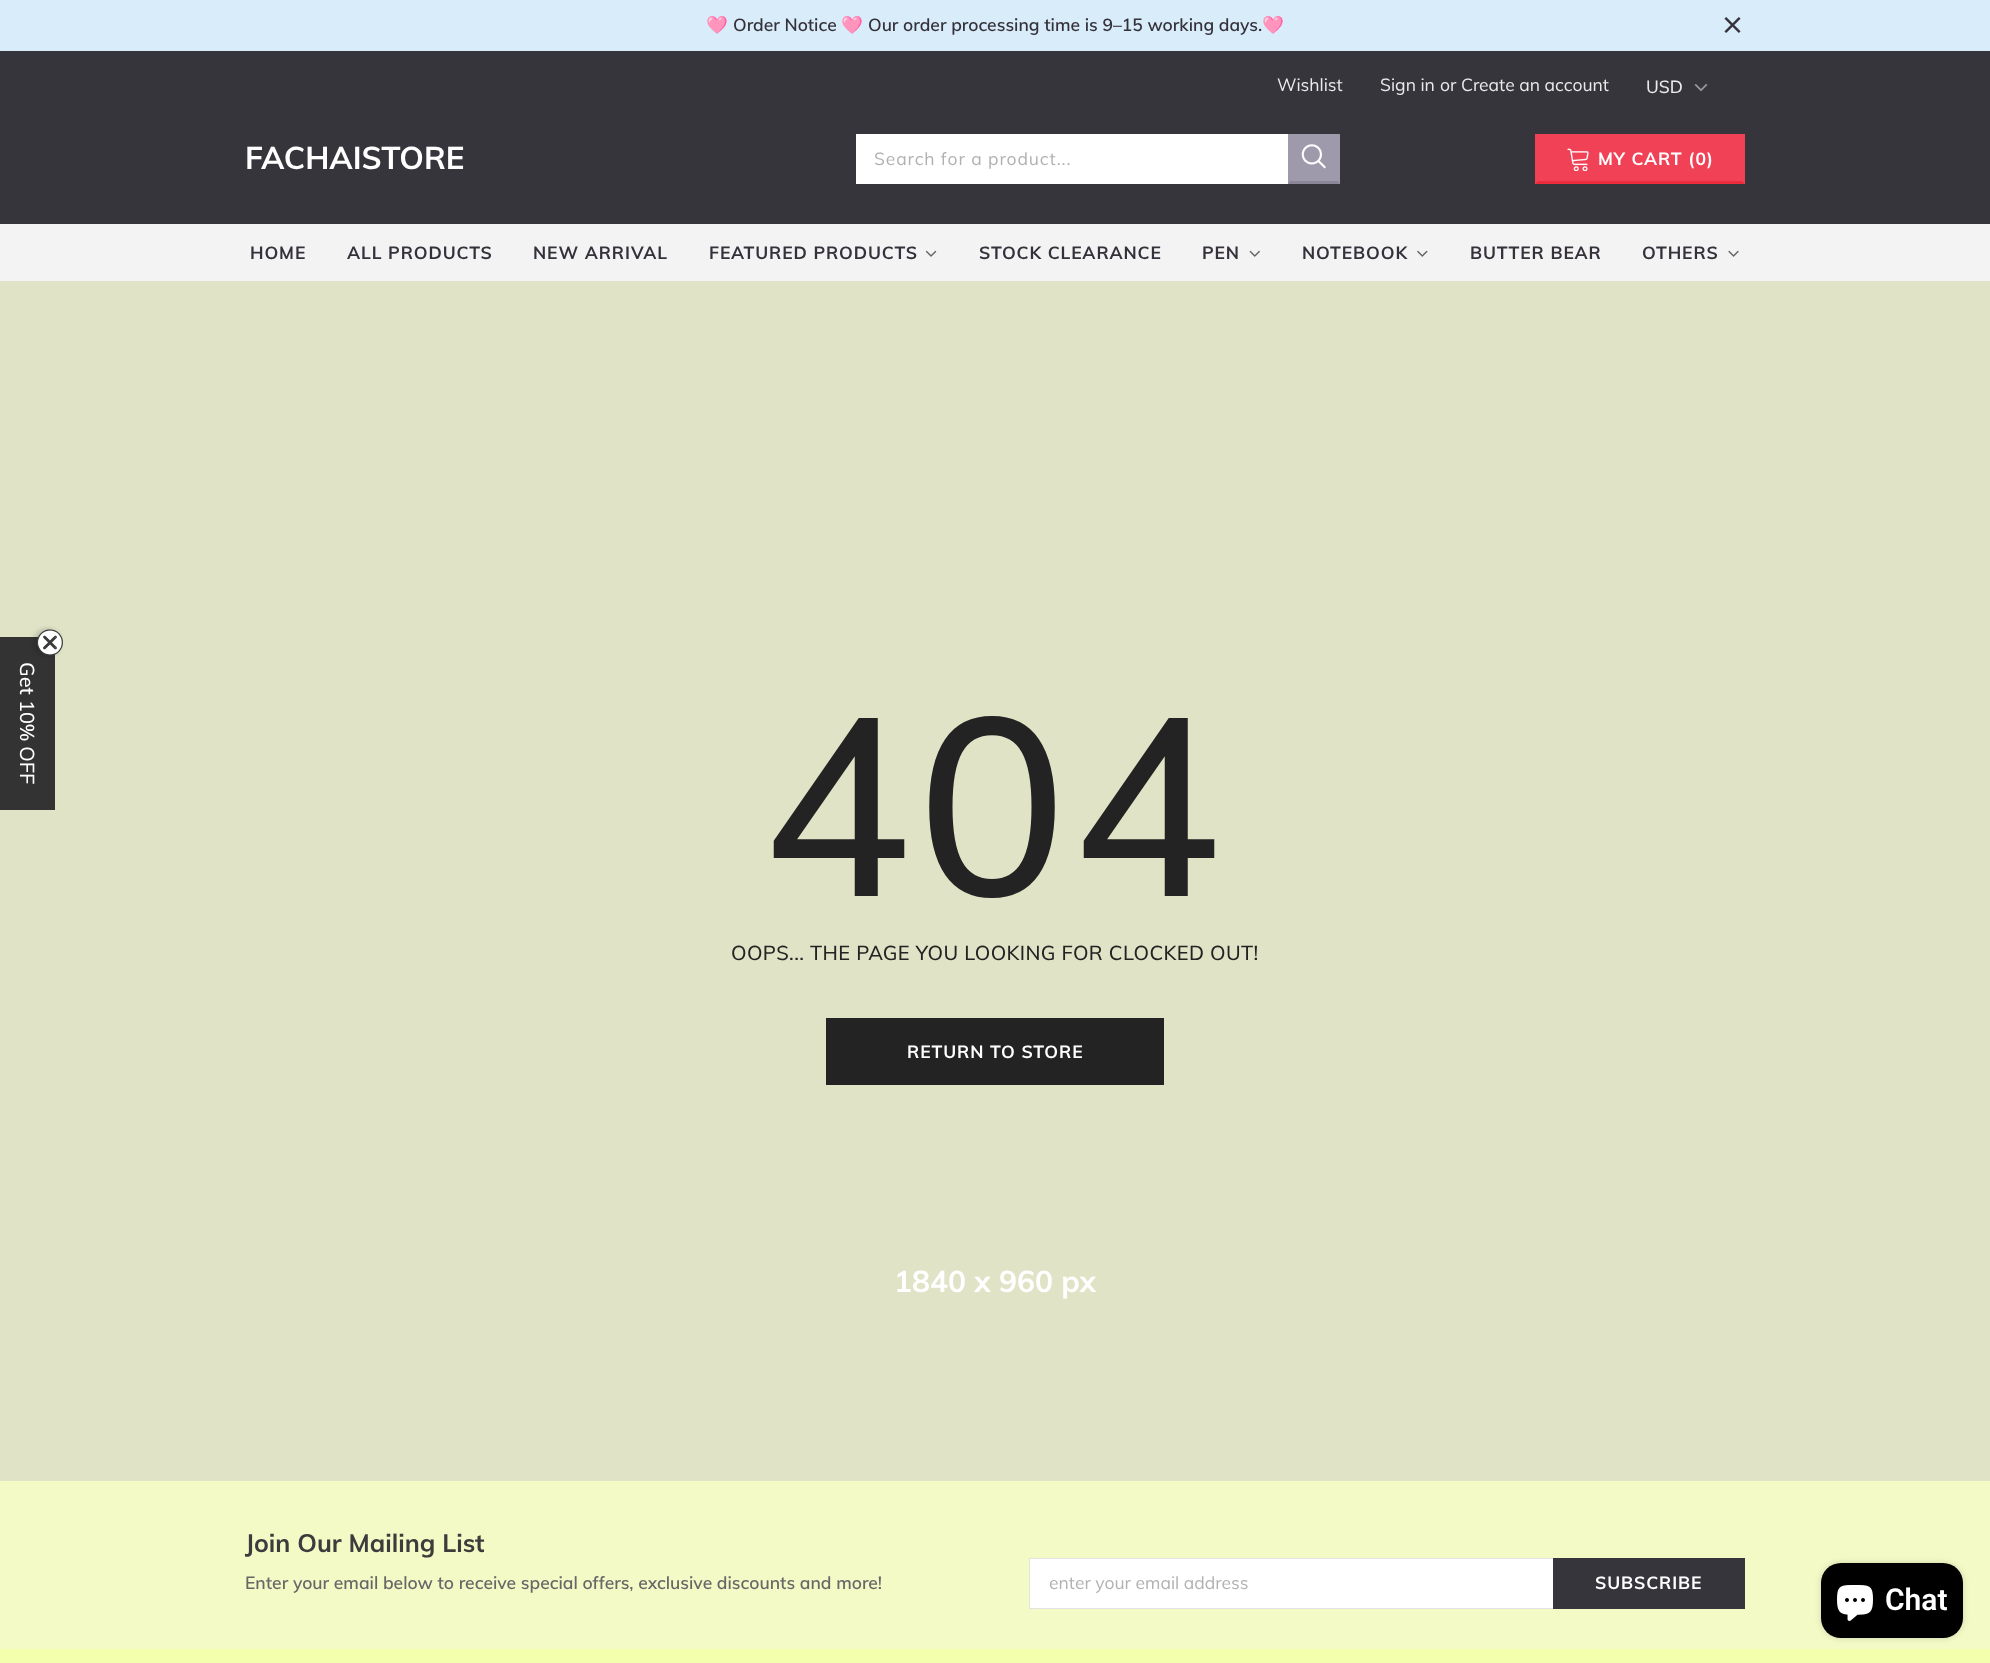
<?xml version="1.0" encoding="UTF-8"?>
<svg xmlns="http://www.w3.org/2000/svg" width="1990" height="1663">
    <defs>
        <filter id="blur1" x="-50%" y="-200%" width="200%" height="500%"><feGaussianBlur stdDeviation="3"/></filter>
    </defs>
    <rect width="100%" height="100%" fill="#D9ECF9"/>
    <text x="706" y="31" font-family="Noto Color Emoji" font-size="17.5" font-weight="700" fill="#34313A">🩷</text>
    <text x="733" y="31" font-family="Muli" font-size="17.5" font-weight="600" fill="#34313A">Order Notice</text>
    <text x="841" y="31" font-family="Noto Color Emoji" font-size="17.5" font-weight="700" fill="#34313A">🩷</text>
    <text x="868" y="31" font-family="Muli" font-size="17.5" font-weight="600" fill="#34313A">Our order processing time is 9–15 working days.</text>
    <text x="1262" y="31" font-family="Noto Color Emoji" font-size="17.5" font-weight="700" fill="#34313A">🩷</text>
    <image x="1724" y="17" width="17" height="16" href="img_01.png"/>
    <rect x="0" y="51" width="1990" height="173" fill="#37353C"/>
    <text x="1277" y="91" font-family="Muli" font-size="17.5" fill="#EBEBEC">Wishlist</text>
    <text x="1380" y="91" font-family="Muli" font-size="17.5" fill="#EBEBEC">Sign in</text>
    <text x="1440" y="91" font-family="Muli" font-size="17.5" fill="#EBEBEC">or Create an account</text>
    <text x="1646" y="93" font-family="Muli" font-size="17.5" font-weight="500" fill="#EBEBEC">USD</text>
    <image x="1694" y="84" width="14" height="8" href="img_02.png"/>
    <text x="245" y="169" font-family="Muli" font-size="31.25" font-weight="700" fill="#FFFFFF">FACHAISTORE</text>
    <rect x="856" y="134" width="432" height="50" fill="#FFFFFF"/>
    <text x="874" y="165" font-family="Muli" font-size="17.5" letter-spacing="0.9" fill="#B1B1B1">Search for a product...</text>
    <rect x="1288" y="134" width="52" height="50" fill="#9F9AAB"/>
    <path d="M 1340 184 H 1288 L 1290 181 H 1338 Z" fill="#8C8798"/>
    <image x="1301" y="144" width="25" height="25" href="img_03.png"/>
    <rect x="1535" y="134" width="210" height="50" fill="#F14156"/>
    <path d="M 1745 184 H 1535 L 1538 181 H 1742 Z" fill="#EB2C3C"/>
    <image x="1567" y="148" width="22" height="23" href="img_04.png"/>
    <text x="1598" y="165" font-family="Muli" font-size="17.5" font-weight="700" letter-spacing="0.9" fill="#FFFFFF">MY CART (0)</text>
    <rect x="0" y="224" width="1990" height="57" fill="#F3F3F3"/>
    <text x="250" y="259" font-family="Muli" font-size="17.5" font-weight="700" letter-spacing="0.9" fill="#34313A">HOME</text>
    <text x="347" y="259" font-family="Muli" font-size="17.5" font-weight="700" letter-spacing="0.9" fill="#34313A">ALL PRODUCTS</text>
    <text x="533" y="259" font-family="Muli" font-size="17.5" font-weight="700" letter-spacing="0.9" fill="#34313A">NEW ARRIVAL</text>
    <text x="709" y="259" font-family="Muli" font-size="17.5" font-weight="700" letter-spacing="0.9" fill="#34313A">FEATURED PRODUCTS</text>
    <image x="925" y="250" width="12" height="7" href="img_05.png"/>
    <text x="979" y="259" font-family="Muli" font-size="17.5" font-weight="700" letter-spacing="0.9" fill="#34313A">STOCK CLEARANCE</text>
    <text x="1202" y="259" font-family="Muli" font-size="17.5" font-weight="700" letter-spacing="0.9" fill="#34313A">PEN</text>
    <image x="1249" y="250" width="11" height="7" href="img_06.png"/>
    <text x="1302" y="259" font-family="Muli" font-size="17.5" font-weight="700" letter-spacing="0.9" fill="#34313A">NOTEBOOK</text>
    <image x="1417" y="250" width="11" height="7" href="img_07.png"/>
    <text x="1470" y="259" font-family="Muli" font-size="17.5" font-weight="700" letter-spacing="0.9" fill="#34313A">BUTTER BEAR</text>
    <text x="1642" y="259" font-family="Muli" font-size="17.5" font-weight="700" letter-spacing="0.9" fill="#34313A">OTHERS</text>
    <image x="1728" y="250" width="11" height="7" href="img_08.png"/>
    <rect x="0" y="281" width="1990" height="1200" fill="#E0E3C6"/>
    <rect x="0" y="637" width="55" height="173" fill="#333333"/>
    <image x="31" y="626" width="32" height="31" href="img_09.png"/>
    <text x="20" y="662" transform="rotate(90 20 662)" font-family="Muli" font-size="20" font-weight="500" fill="#FFFFFF">Get 10% OFF</text>
    <text x="762" y="896" font-family="Muli" font-size="250" font-weight="500" letter-spacing="5" fill="#232323">404</text>
    <text x="731" y="960" font-family="Muli" font-size="20" font-weight="500" letter-spacing="0.4" fill="#232323">OOPS... THE PAGE YOU LOOKING FOR CLOCKED OUT!</text>
    <rect x="826" y="1018" width="338" height="67" fill="#232323"/>
    <text x="907" y="1058" font-family="Muli" font-size="17.5" font-weight="700" letter-spacing="0.9" fill="#FFFFFF">RETURN TO STORE</text>
    <text x="894" y="1292" font-family="Muli" font-size="30" font-weight="700" fill="#FFFFFF">1840 x 960 px</text>
    <rect x="0" y="1481" width="1990" height="168" fill="#F3FAC6"/>
    <text x="245" y="1552" font-family="Muli" font-size="25" font-weight="700" fill="#3C3C3C">Join Our Mailing List</text>
    <text x="245" y="1589" font-family="Muli" font-size="17.5" font-weight="600" fill="#676767">Enter your email below to receive special offers, exclusive discounts and more!</text>
    <rect x="1030" y="1559" width="523" height="49" fill="#FFFFFF"/>
    <rect x="1029" y="1558" width="524" height="1" fill="#E3E3E3"/>
    <rect x="1029" y="1608" width="524" height="1" fill="#E3E3E3"/>
    <rect x="1029" y="1558" width="1" height="51" fill="#E3E3E3"/>
    <text x="1049" y="1589" font-family="Muli" font-size="17.5" fill="#B1B1B1">enter your email address</text>
    <rect x="1553" y="1558" width="192" height="51" fill="#37353C"/>
    <text x="1595" y="1589" font-family="Muli" font-size="17.5" font-weight="700" letter-spacing="0.9" fill="#FFFFFF">SUBSCRIBE</text>
    <rect x="0" y="1649" width="1990" height="14" fill="#F4FFAD"/>
    <rect x="1821" y="1563" width="142" height="75" rx="20" fill="#000000" fill-opacity="0.15" filter="url(#blur1)"/>
    <rect x="1821" y="1563" width="142" height="75" rx="20" fill="#000000"/>
    <image x="1837" y="1585" width="36" height="36" href="img_10.png"/>
    <text x="1885" y="1610" font-family="Roboto" font-size="30" font-weight="600" fill="#FFFFFF">Chat</text>
</svg>
